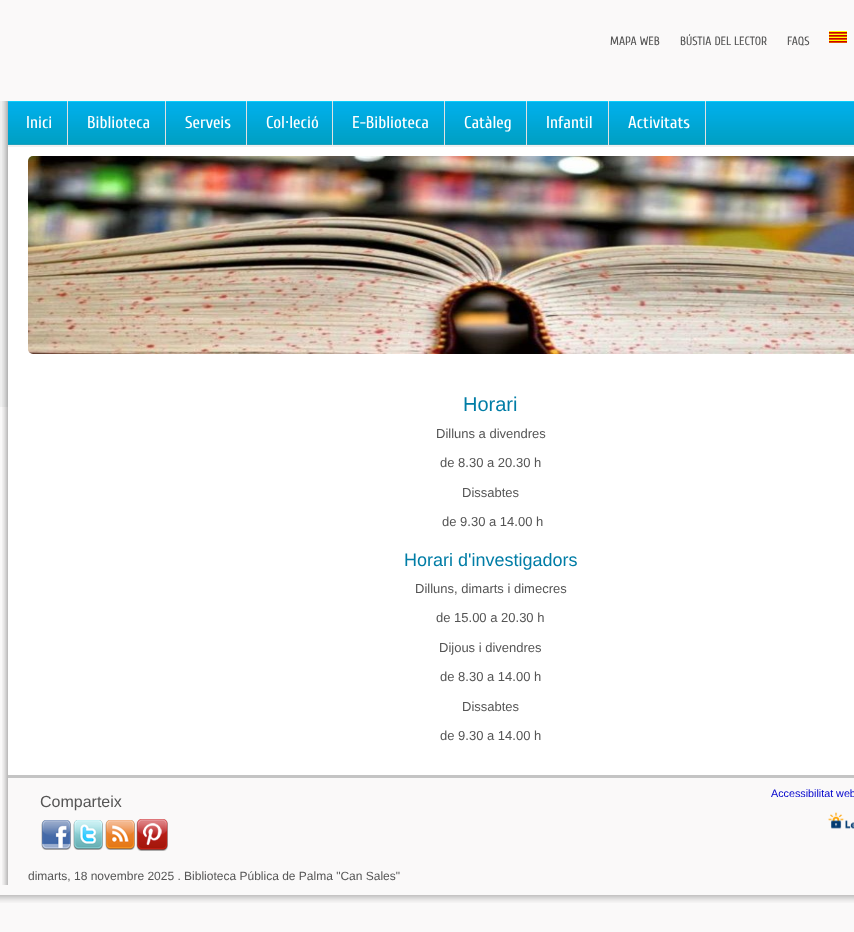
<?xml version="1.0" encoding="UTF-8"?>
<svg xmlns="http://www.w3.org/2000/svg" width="854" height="932">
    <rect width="100%" height="100%" fill="#FAF9F9"/>
    <rect x="0" y="101" width="854" height="306" fill="#EFEFEF"/>
    <text x="610" y="45" font-family="Cuprum" font-size="12" fill="#555555">MAPA WEB</text>
    <text x="680" y="45" font-family="Cuprum" font-size="12" fill="#555555">BÚSTIA DEL LECTOR</text>
    <text x="787" y="45" font-family="Cuprum" font-size="12" fill="#555555">FAQS</text>
    <image x="829" y="31" width="18" height="12" href="img_01.png"/>
    <image x="2" y="101" width="6" height="784" href="img_02.png"/>
    <image x="8" y="101" width="846" height="44" href="img_03.png"/>
    <rect x="67" y="101" width="1" height="44" fill="#E1E1E1"/>
    <text x="26" y="128" font-family="Cuprum" font-size="17" fill="#FFFFFF">Inici</text>
    <rect x="165" y="101" width="1" height="44" fill="#E1E1E1"/>
    <text x="87" y="128" font-family="Cuprum" font-size="17" fill="#FFFFFF">Biblioteca</text>
    <rect x="246" y="101" width="1" height="44" fill="#E1E1E1"/>
    <text x="185" y="128" font-family="Cuprum" font-size="17" fill="#FFFFFF">Serveis</text>
    <rect x="332" y="101" width="1" height="44" fill="#E1E1E1"/>
    <text x="266" y="128" font-family="Cuprum" font-size="17" fill="#FFFFFF">Col·leció</text>
    <rect x="444" y="101" width="1" height="44" fill="#E1E1E1"/>
    <text x="352" y="128" font-family="Cuprum" font-size="17" fill="#FFFFFF">E-Biblioteca</text>
    <rect x="526" y="101" width="1" height="44" fill="#E1E1E1"/>
    <text x="464" y="128" font-family="Cuprum" font-size="17" fill="#FFFFFF">Catàleg</text>
    <rect x="608" y="101" width="1" height="44" fill="#E1E1E1"/>
    <text x="546" y="128" font-family="Cuprum" font-size="17" fill="#FFFFFF">Infantil</text>
    <rect x="705" y="101" width="1" height="44" fill="#E1E1E1"/>
    <text x="628" y="128" font-family="Cuprum" font-size="17" fill="#FFFFFF">Activitats</text>
    <rect x="8" y="147" width="846" height="628" fill="#FFFFFF"/>
    <image x="28" y="156" width="826" height="198" href="img_04.png"/>
    <text x="463" y="411" font-family="Liberation Sans" font-size="20" fill="#007DA6">Horari</text>
    <text x="436" y="438" font-family="Liberation Sans" font-size="13" fill="#555555">Dilluns a divendres</text>
    <text x="440" y="467" font-family="Liberation Sans" font-size="13" fill="#555555">de 8.30 a 20.30 h</text>
    <text x="462" y="497" font-family="Liberation Sans" font-size="13" fill="#555555">Dissabtes</text>
    <text x="442" y="526" font-family="Liberation Sans" font-size="13" fill="#555555">de 9.30 a 14.00 h</text>
    <text x="404" y="566" font-family="Liberation Sans" font-size="18" fill="#007DA6">Horari d'investigadors</text>
    <text x="415" y="593" font-family="Liberation Sans" font-size="13" fill="#555555">Dilluns, dimarts i dimecres</text>
    <text x="436" y="622" font-family="Liberation Sans" font-size="13" fill="#555555">de 15.00 a 20.30 h</text>
    <text x="439" y="652" font-family="Liberation Sans" font-size="13" fill="#555555">Dijous i divendres</text>
    <text x="440" y="681" font-family="Liberation Sans" font-size="13" fill="#555555">de 8.30 a 14.00 h</text>
    <text x="462" y="711" font-family="Liberation Sans" font-size="13" fill="#555555">Dissabtes</text>
    <text x="440" y="740" font-family="Liberation Sans" font-size="13" fill="#555555">de 9.30 a 14.00 h</text>
    <text x="771" y="797" font-family="Liberation Sans" font-size="10.75" fill="#0000CC">Accessibilitat web</text>
    <image x="828" y="812" width="26" height="17" href="img_05.png"/>
    <text x="40" y="807" font-family="Liberation Sans" font-size="16" fill="#555555">Comparteix</text>
    <image x="41" y="820" width="30" height="30" href="img_06.png"/>
    <image x="73" y="820" width="30" height="30" href="img_07.png"/>
    <image x="105" y="820" width="30" height="30" href="img_08.png"/>
    <image x="136" y="819" width="32" height="32" href="img_09.png"/>
    <rect x="8" y="775" width="846" height="3" fill="#C4C4C4"/>
    <text x="28" y="880" font-family="Liberation Sans" font-size="12" fill="#555555">dimarts, 18 novembre 2025 . Biblioteca Pública de Palma "Can Sales"</text>
    <image x="0" y="895" width="854" height="8" href="img_10.png"/>
</svg>
